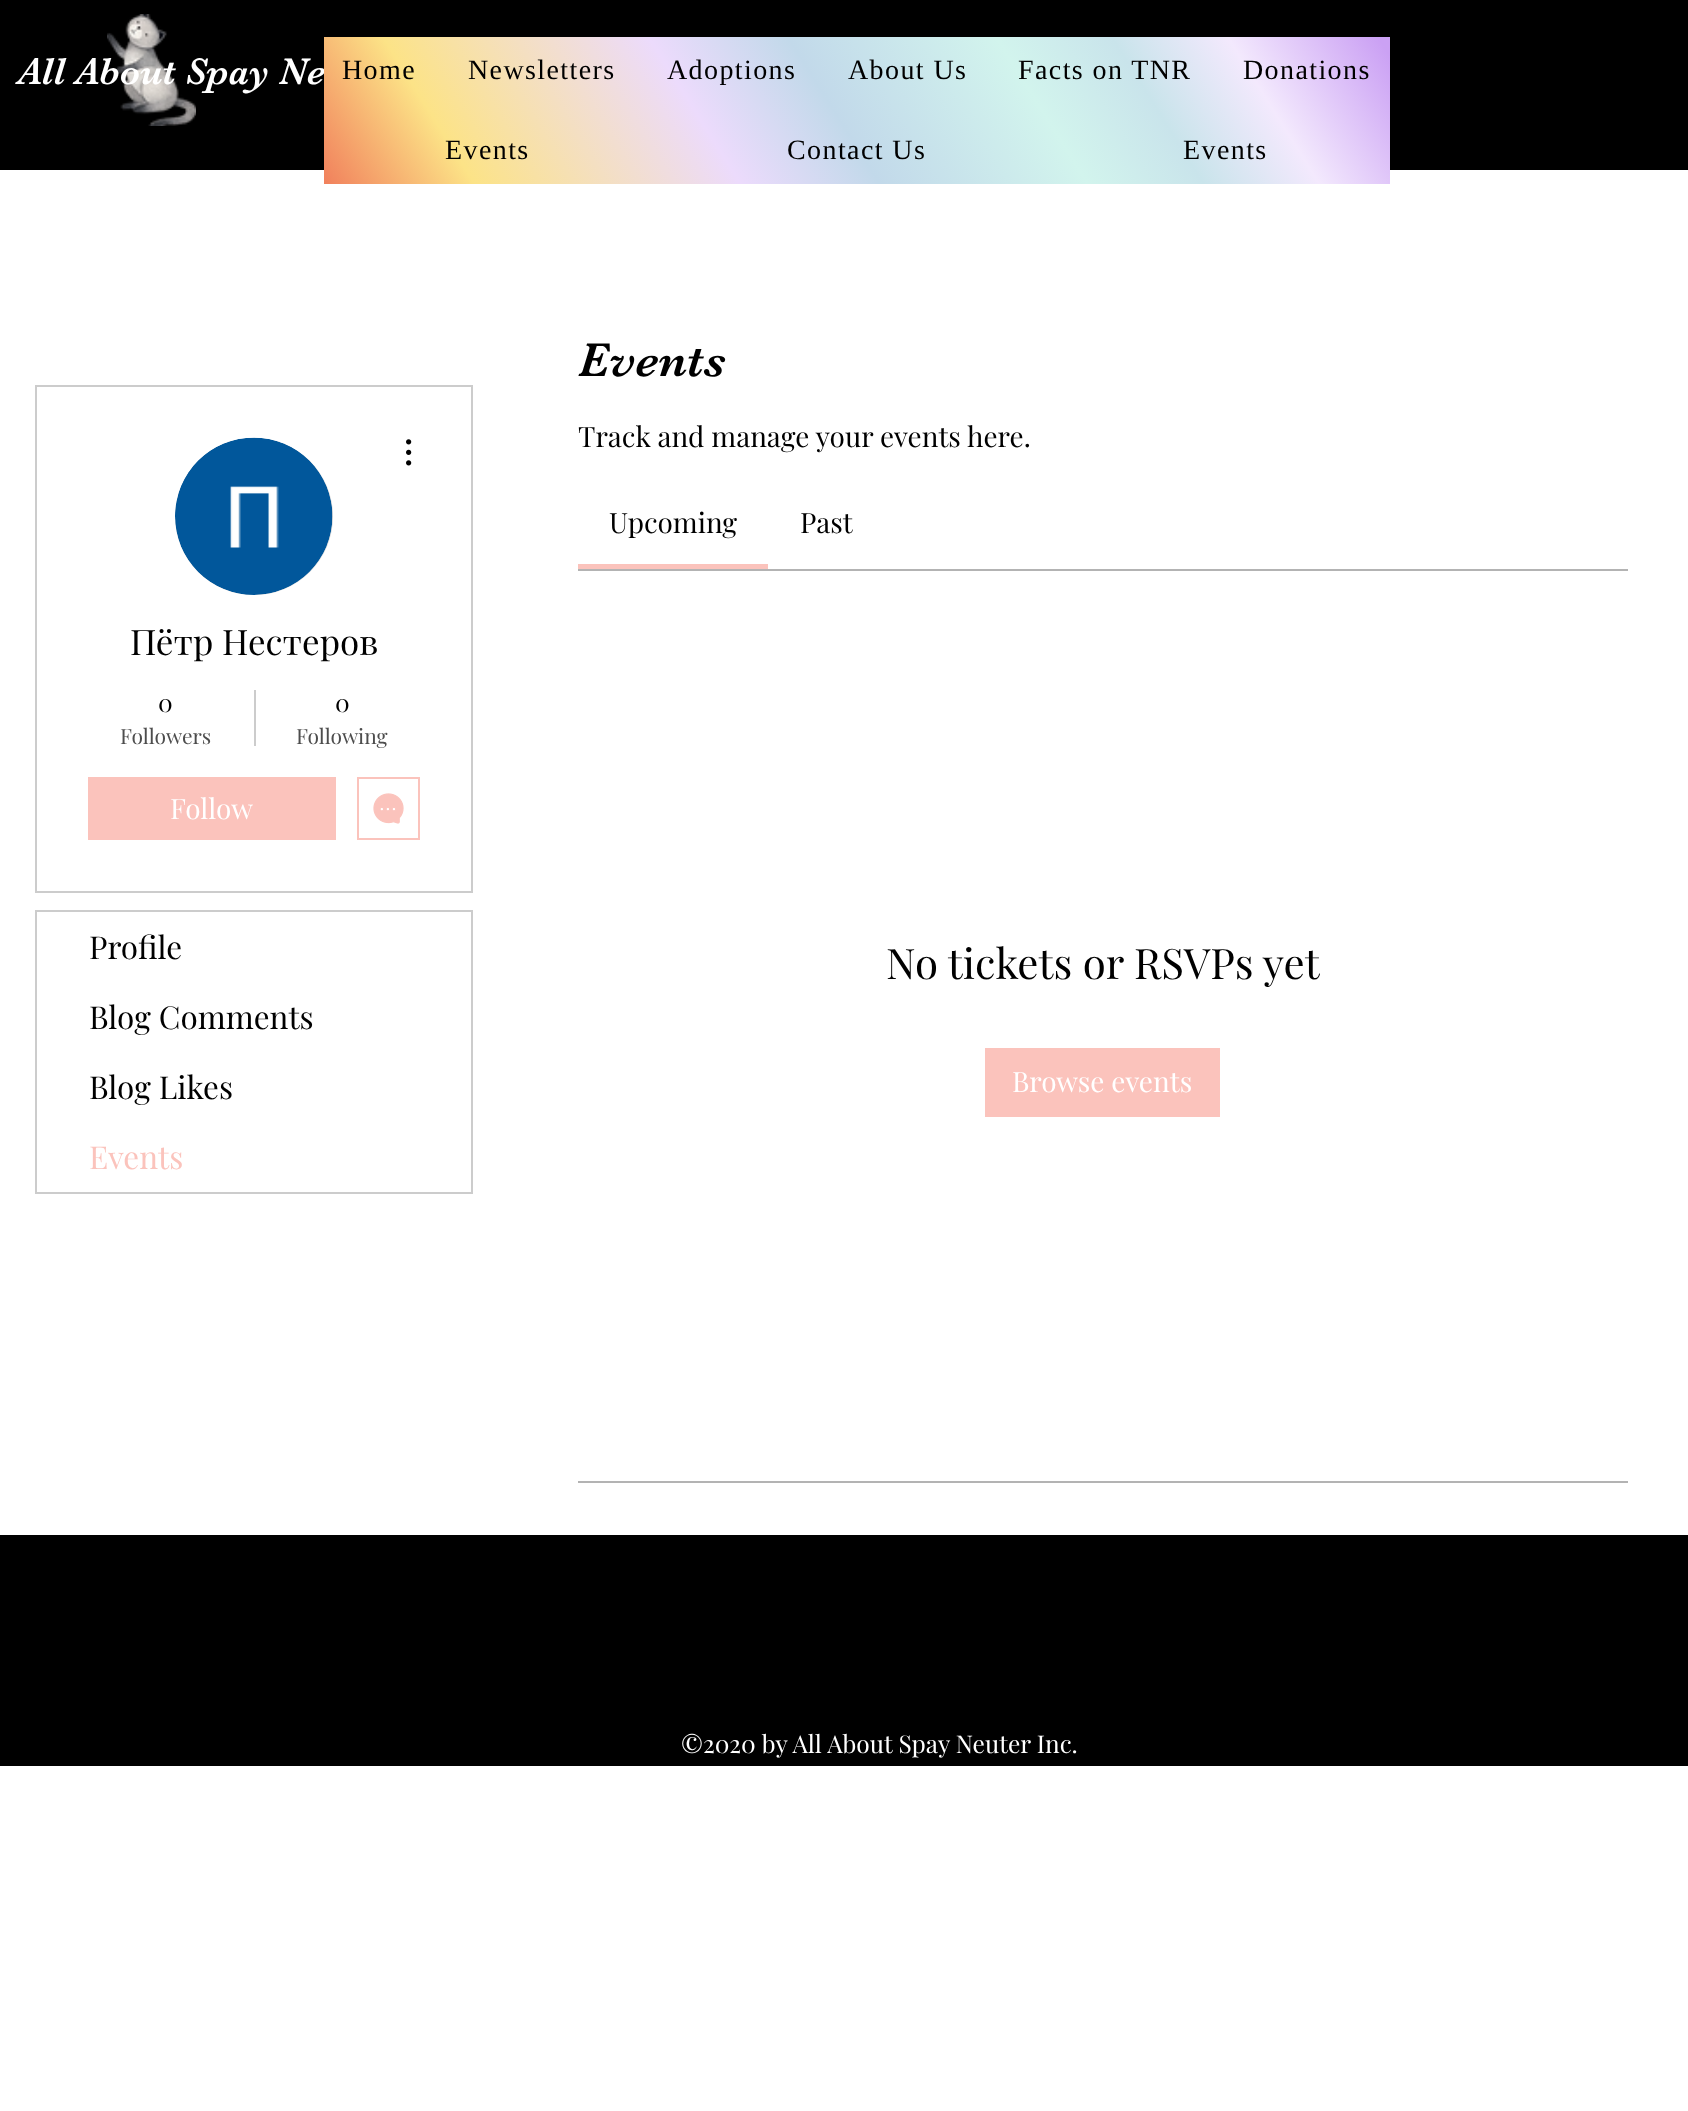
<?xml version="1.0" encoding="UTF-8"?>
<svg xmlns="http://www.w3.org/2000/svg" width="1688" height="2111">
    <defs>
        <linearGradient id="g1" gradientUnits="userSpaceOnUse" x1="440" y1="370" x2="1273" y2="-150"><stop offset="0" stop-color="#F1805C"/><stop offset="0.13" stop-color="#FCE387"/><stop offset="0.36" stop-color="#ECDBFC"/><stop offset="0.48" stop-color="#C2D9EA"/><stop offset="0.66" stop-color="#D2F4ED"/><stop offset="0.76" stop-color="#C9E4EB"/><stop offset="0.86" stop-color="#F3E9FD"/><stop offset="0.99" stop-color="#CBA1F4"/></linearGradient>
    </defs>
    <rect width="100%" height="100%" fill="#FFFFFF"/>
    <rect x="0" y="0" width="1688" height="170" fill="#000000"/>
    <image x="107" y="14" width="89" height="112" href="img_01.png"/>
    <text x="18" y="84" font-family="'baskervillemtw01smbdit'" font-size="38.5" fill="#FFFFFF">All About Spay Ne</text>
    <rect x="324" y="37" width="1066" height="147" fill="url(#g1)"/>
    <text x="342" y="79" font-family="Liberation Serif" font-size="28" letter-spacing="1.4" fill="#000000">Home</text>
    <text x="468" y="79" font-family="Liberation Serif" font-size="28" letter-spacing="1.4" fill="#000000">Newsletters</text>
    <text x="667" y="79" font-family="Liberation Serif" font-size="28" letter-spacing="1.4" fill="#000000">Adoptions</text>
    <text x="848" y="79" font-family="Liberation Serif" font-size="28" letter-spacing="1.4" fill="#000000">About Us</text>
    <text x="1018" y="79" font-family="Liberation Serif" font-size="28" letter-spacing="1.4" fill="#000000">Facts on TNR</text>
    <text x="1243" y="79" font-family="Liberation Serif" font-size="28" letter-spacing="1.4" fill="#000000">Donations</text>
    <text x="445" y="159" font-family="Liberation Serif" font-size="28" letter-spacing="1.4" fill="#000000">Events</text>
    <text x="787" y="159" font-family="Liberation Serif" font-size="28" letter-spacing="1.4" fill="#000000">Contact Us</text>
    <text x="1183" y="159" font-family="Liberation Serif" font-size="28" letter-spacing="1.4" fill="#000000">Events</text>
    <rect x="36" y="386" width="436" height="506" fill="none" stroke="#CCCCCC" stroke-width="2"/>
    <rect x="175" y="438" width="158" height="157" rx="78.5" fill="#D8D8D8"/>
    <image x="175" y="437" width="158" height="158" href="img_02.png"/>
    <image x="406" y="439" width="6" height="27" href="img_03.png"/>
    <text x="130" y="655" font-family="Playfair Display" font-size="35" fill="#000000">Пётр Нестеров</text>
    <text x="158" y="712" font-family="Playfair Display" font-size="24.5" fill="#000000">0</text>
    <text x="120" y="744" font-family="Playfair Display" font-size="21" fill="#4D4D4D">Followers</text>
    <rect x="254" y="690" width="2" height="56" fill="#CCCCCC"/>
    <text x="335" y="712" font-family="Playfair Display" font-size="24.5" fill="#000000">0</text>
    <text x="296" y="744" font-family="Playfair Display" font-size="21" fill="#4D4D4D">Following</text>
    <rect x="88" y="777" width="248" height="63" fill="#FBC3BC"/>
    <text x="170" y="819" font-family="Playfair Display" font-size="28" fill="#FFFFFF">Follow</text>
    <rect x="358" y="778" width="61" height="61" fill="none" stroke="#FBC3BC" stroke-width="2"/>
    <image x="373" y="793" width="31" height="31" href="img_04.png"/>
    <rect x="36" y="911" width="436" height="282" fill="none" stroke="#CCCCCC" stroke-width="2"/>
    <text x="89" y="959" font-family="Playfair Display" font-size="31.5" fill="#000000">Profile</text>
    <text x="89" y="1029" font-family="Playfair Display" font-size="31.5" fill="#000000">Blog Comments</text>
    <text x="89" y="1099" font-family="Playfair Display" font-size="31.5" fill="#000000">Blog Likes</text>
    <text x="89" y="1169" font-family="Playfair Display" font-size="31.5" fill="#FBC3BC">Events</text>
    <text x="578" y="376" font-family="'baskervillemtw01smbdit'" font-size="49" fill="#000000">Events</text>
    <text x="578" y="447" font-family="Playfair Display" font-size="28" fill="#000000">Track and manage your events here.</text>
    <rect x="578" y="564" width="190" height="5" fill="#FBC3BC"/>
    <text x="609" y="533" font-family="Playfair Display" font-size="28" fill="#000000">Upcoming</text>
    <text x="800" y="533" font-family="Playfair Display" font-size="28" fill="#000000">Past</text>
    <rect x="578" y="569" width="1050" height="2" fill="#B3B3B3"/>
    <text x="886" y="979" font-family="Playfair Display" font-size="42" fill="#000000">No tickets or RSVPs yet</text>
    <rect x="985" y="1048" width="235" height="69" fill="#FBC3BC"/>
    <text x="1012" y="1092" font-family="Playfair Display" font-size="28" fill="#FFFFFF">Browse events</text>
    <rect x="578" y="1481" width="1050" height="2" fill="#B3B3B3"/>
    <rect x="0" y="1535" width="1688" height="231" fill="#000000"/>
    <text x="681" y="1753" font-family="Playfair Display" font-size="24.5" fill="#FFFFFF">©2020 by All About Spay Neuter Inc.</text>
</svg>
